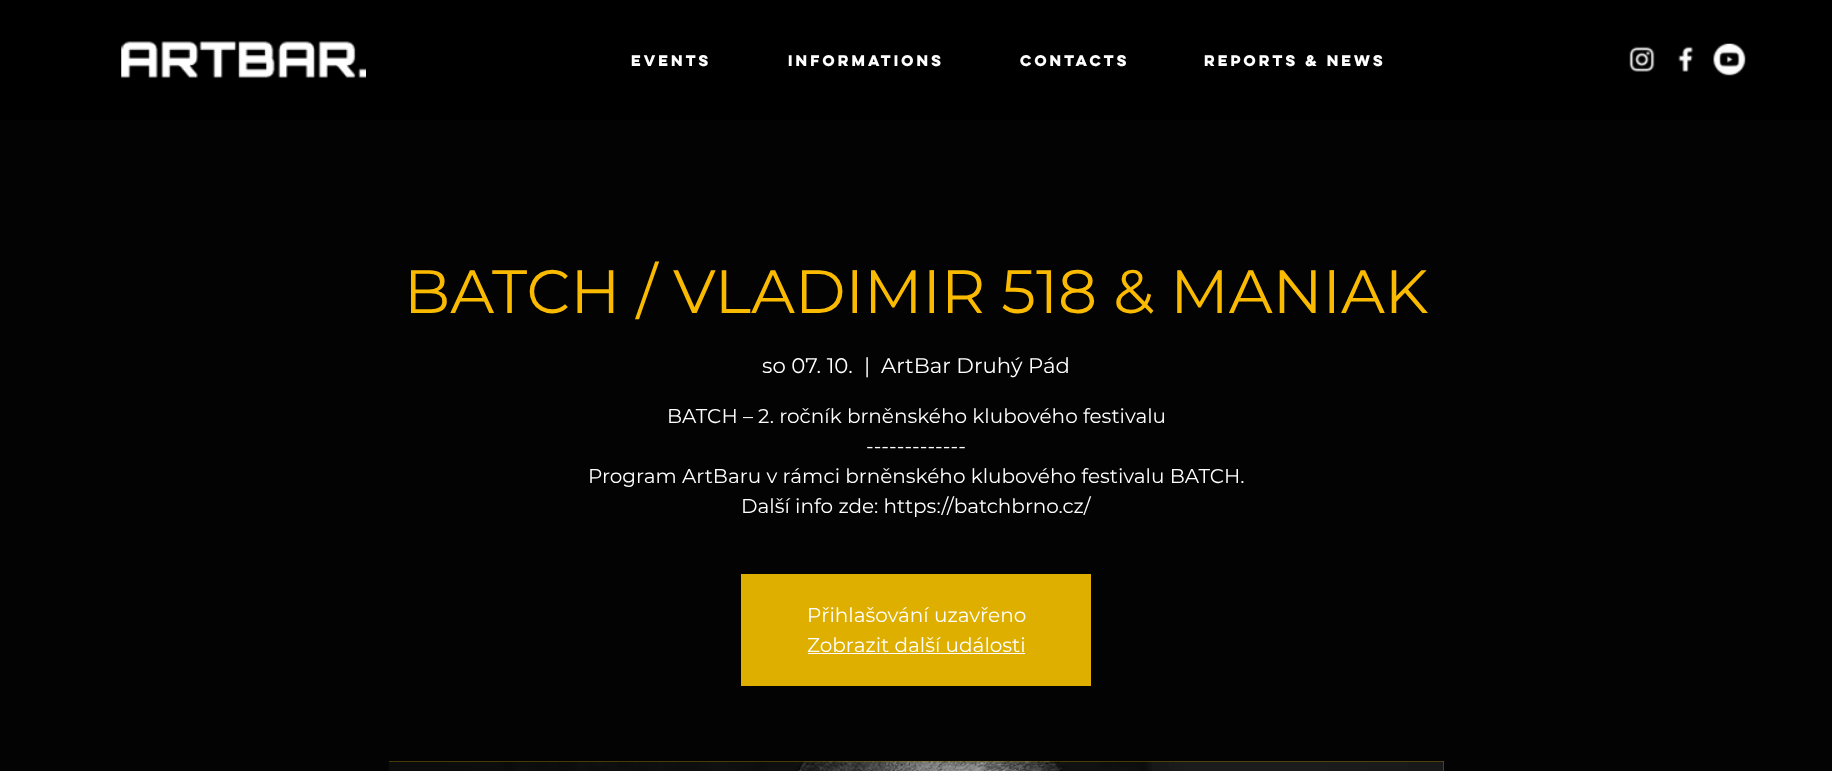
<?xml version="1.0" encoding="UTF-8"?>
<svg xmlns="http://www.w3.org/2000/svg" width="1832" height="771">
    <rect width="100%" height="100%" fill="#030303"/>
    <rect x="0" y="0" width="1832" height="120" fill="#000000"/>
    <image x="121" y="41" width="245" height="37" href="img_01.png"/>
    <text x="631" y="66" font-family="'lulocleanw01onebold'" font-size="13.75" font-weight="700" fill="#FFFFFF">EVENTS</text>
    <text x="788" y="66" font-family="'lulocleanw01onebold'" font-size="13.75" font-weight="700" fill="#FFFFFF">INFORMATIONS</text>
    <text x="1020" y="66" font-family="'lulocleanw01onebold'" font-size="13.75" font-weight="700" fill="#FFFFFF">CONTACTS</text>
    <text x="1204" y="66" font-family="'lulocleanw01onebold'" font-size="13.75" font-weight="700" fill="#FFFFFF">REPORTS &amp; NEWS</text>
    <image x="1629" y="46" width="26" height="26" href="img_02.png"/>
    <image x="1678" y="46" width="16" height="26" href="img_03.png"/>
    <image x="1713" y="43" width="33" height="33" href="img_04.png"/>
    <text x="404" y="313" font-family="Montserrat" font-size="61.25" fill="#FABA00">BATCH / VLADIMIR 518 &amp; MANIAK</text>
    <text x="762" y="373" font-family="Montserrat" font-size="21.25" fill="#FFFFFF">so 07. 10.</text>
    <text x="864" y="373" font-family="Montserrat" font-size="21.25" fill="#FFFFFF">|</text>
    <text x="881" y="373" font-family="Montserrat" font-size="21.25" fill="#FFFFFF">ArtBar Druhý Pád</text>
    <text x="667" y="423" font-family="Montserrat" font-size="20" fill="#FFFFFF">BATCH – 2. ročník brněnského klubového festivalu</text>
    <text x="866" y="453" font-family="Montserrat" font-size="20" fill="#FFFFFF">-------------</text>
    <text x="588" y="483" font-family="Montserrat" font-size="20" fill="#FFFFFF">Program ArtBaru v rámci brněnského klubového festivalu BATCH.</text>
    <text x="741" y="513" font-family="Montserrat" font-size="20" fill="#FFFFFF">Další info zde: https://batchbrno.cz/</text>
    <rect x="741" y="574" width="350" height="112" fill="#DFAF00"/>
    <text font-family="Montserrat" font-size="20" fill="#FFFFFF">
        <tspan x="807" y="622">Přihlašování uzavřeno</tspan>
        <tspan x="807" y="652">Zobrazit další události</tspan>
    </text>
    <rect x="808" y="653" width="217" height="1" fill="#FFFFFF"/>
    <rect x="389" y="761" width="1055" height="10" fill="#957500"/>
    <image x="389" y="761" width="1055" height="10" href="img_05.png"/>
</svg>
